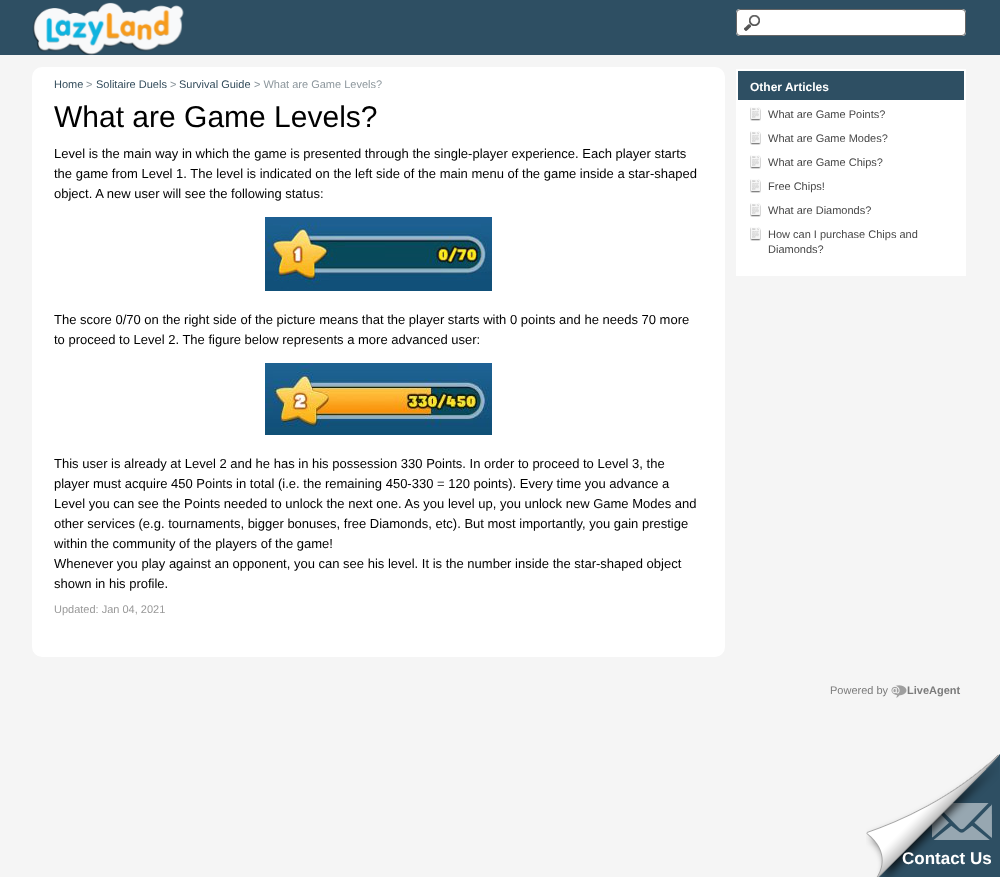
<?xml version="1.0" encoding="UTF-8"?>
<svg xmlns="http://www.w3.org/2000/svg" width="1000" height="877">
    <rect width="100%" height="100%" fill="#F5F5F5"/>
    <rect x="0" y="0" width="1000" height="55" fill="#2E4F63"/>
    <image x="32" y="2" width="152" height="53" href="img_01.png"/>
    <rect x="736" y="9" width="230" height="27" rx="4" fill="#FFFFFF"/>
    <image x="744" y="15" width="16" height="16" href="img_02.png"/>
    <rect x="736.5" y="9.5" width="229" height="26" rx="3.5" fill="none" stroke="#666666"/>
    <rect x="32" y="67" width="693" height="590" rx="10" fill="#FFFFFF"/>
    <text x="54" y="88" font-family="Liberation Sans" font-size="11" fill="#344D5C">Home</text>
    <text x="86" y="88" font-family="Liberation Sans" font-size="11" fill="#8D979D">&gt;</text>
    <text x="96" y="88" font-family="Liberation Sans" font-size="11" fill="#344D5C">Solitaire Duels</text>
    <text x="170" y="88" font-family="Liberation Sans" font-size="11" fill="#8D979D">&gt;</text>
    <text x="179" y="88" font-family="Liberation Sans" font-size="11" fill="#344D5C">Survival Guide</text>
    <text x="254" y="88" font-family="Liberation Sans" font-size="11" fill="#8D979D">&gt; What are Game Levels?</text>
    <text x="54" y="127" font-family="Liberation Sans" font-size="30" fill="#000000">What are Game Levels?</text>
    <text font-family="Liberation Sans" font-size="13" fill="#000000">
        <tspan x="54" y="158">Level is the main way in which the game is presented through the single-player experience. Each player starts</tspan>
        <tspan x="54" y="178">the game from Level 1. The level is indicated on the left side of the main menu of the game inside a star-shaped</tspan>
        <tspan x="54" y="198">object. A new user will see the following status:</tspan>
    </text>
    <image x="265" y="217" width="227" height="74" href="img_03.png"/>
    <text font-family="Liberation Sans" font-size="13" fill="#000000">
        <tspan x="54" y="324">The score 0/70 on the right side of the picture means that the player starts with 0 points and he needs 70 more</tspan>
        <tspan x="54" y="344">to proceed to Level 2. The figure below represents a more advanced user:</tspan>
    </text>
    <image x="265" y="363" width="227" height="72" href="img_04.png"/>
    <text font-family="Liberation Sans" font-size="13" fill="#000000">
        <tspan x="54" y="468">This user is already at Level 2 and he has in his possession 330 Points. In order to proceed to Level 3, the</tspan>
        <tspan x="54" y="488">player must acquire 450 Points in total (i.e. the remaining 450-330 = 120 points). Every time you advance a</tspan>
        <tspan x="54" y="508">Level you can see the Points needed to unlock the next one. As you level up, you unlock new Game Modes and</tspan>
        <tspan x="54" y="528">other services (e.g. tournaments, bigger bonuses, free Diamonds, etc). But most importantly, you gain prestige</tspan>
        <tspan x="54" y="548">within the community of the players of the game!</tspan>
        <tspan x="54" y="568">Whenever you play against an opponent, you can see his level. It is the number inside the star-shaped object</tspan>
        <tspan x="54" y="588">shown in his profile.</tspan>
    </text>
    <text x="54" y="613" font-family="Liberation Sans" font-size="11" fill="#999999">Updated: Jan 04, 2021</text>
    <rect x="736" y="69" width="230" height="207" fill="#FFFFFF"/>
    <rect x="738" y="71" width="226" height="29" fill="#2E4F63"/>
    <text x="750" y="91" font-family="Liberation Sans" font-size="12" font-weight="700" fill="#FFFFFF">Other Articles</text>
    <image x="750" y="107" width="11" height="14" href="img_05.png"/>
    <text x="768" y="118" font-family="Liberation Sans" font-size="11" fill="#474747">What are Game Points?</text>
    <image x="750" y="131" width="11" height="14" href="img_05.png"/>
    <text x="768" y="142" font-family="Liberation Sans" font-size="11" fill="#474747">What are Game Modes?</text>
    <image x="750" y="155" width="11" height="14" href="img_05.png"/>
    <text x="768" y="166" font-family="Liberation Sans" font-size="11" fill="#474747">What are Game Chips?</text>
    <image x="750" y="179" width="11" height="14" href="img_05.png"/>
    <text x="768" y="190" font-family="Liberation Sans" font-size="11" fill="#474747">Free Chips!</text>
    <image x="750" y="203" width="11" height="14" href="img_05.png"/>
    <text x="768" y="214" font-family="Liberation Sans" font-size="11" fill="#474747">What are Diamonds?</text>
    <image x="750" y="227" width="11" height="14" href="img_05.png"/>
    <text font-family="Liberation Sans" font-size="11" fill="#474747">
        <tspan x="768" y="238">How can I purchase Chips and</tspan>
        <tspan x="768" y="253">Diamonds?</tspan>
    </text>
    <text x="830" y="694" font-family="Liberation Sans" font-size="11" fill="#7B7B7B">Powered by</text>
    <image x="891" y="685" width="16" height="13" href="img_06.png"/>
    <text x="907" y="694" font-family="Liberation Sans" font-size="11" font-weight="700" fill="#7B7B7B">LiveAgent</text>
    <path d="M 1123 877 H 877 L 1000 754 Z" fill="#2E4F63"/>
    <image x="932" y="803" width="60" height="37" href="img_07.png"/>
    <image x="866" y="754" width="133" height="123" href="img_08.png"/>
    <text x="902" y="864" font-family="Liberation Sans" font-size="17" font-weight="700" fill="#FFFFFF">Contact Us</text>
</svg>
